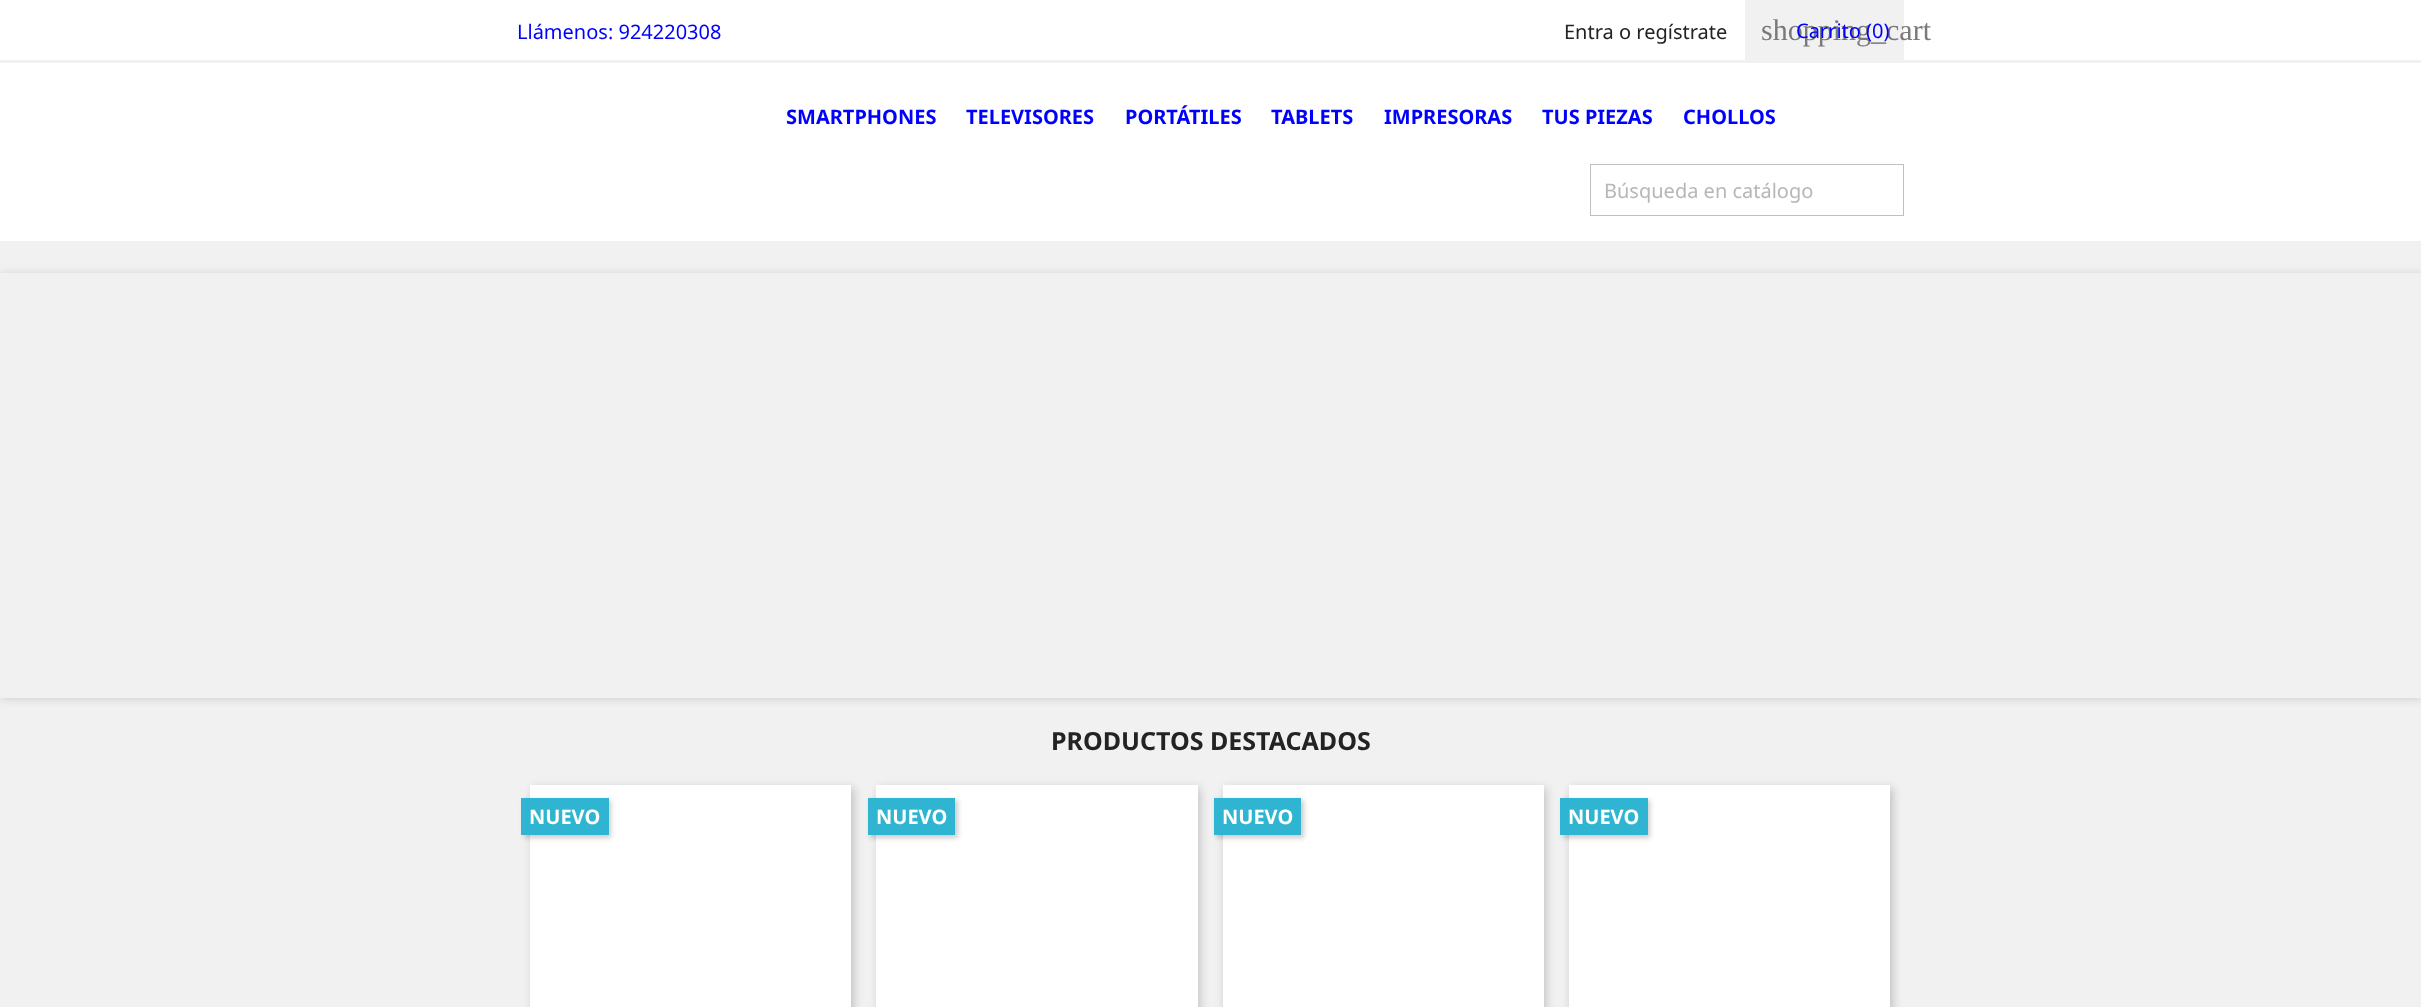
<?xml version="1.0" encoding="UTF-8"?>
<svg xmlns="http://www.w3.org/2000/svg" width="2421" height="1007">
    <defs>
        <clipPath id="clip1"><path d="M 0 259 H 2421 V 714 H 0 Z M 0 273 H 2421 V 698 H 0 Z" clip-rule="evenodd"/></clipPath>
        <filter id="blur1" x="-50%" y="-200%" width="200%" height="500%"><feGaussianBlur stdDeviation="4.5"/></filter>
        <filter id="blur2" x="-50%" y="-200%" width="200%" height="500%"><feGaussianBlur stdDeviation="5"/></filter>
        <filter id="blur3" x="-50%" y="-200%" width="200%" height="500%"><feGaussianBlur stdDeviation="2.5"/></filter>
    </defs>
    <rect width="100%" height="100%" fill="#FFFFFF"/>
    <rect x="0" y="60" width="2421" height="3" fill="#F1F1F1"/>
    <text x="517" y="39" font-family="Noto Sans" font-size="20" fill="#0000FF">Llámenos: 924220308</text>
    <text x="1564" y="39" font-family="Noto Sans" font-size="20" fill="#232323">Entra o regístrate</text>
    <rect x="1745" y="0" width="159" height="60" fill="#F1F1F1"/>
    <text x="1761" y="40" font-family="Liberation Serif" font-size="30" fill="#7A7A7A">shopping_cart</text>
    <text x="1796" y="38" font-family="Noto Sans" font-size="20" fill="#0000FF">Carrito (0)</text>
    <text x="786" y="124" font-family="Noto Sans" font-size="20" font-weight="700" fill="#0000FF">SMARTPHONES</text>
    <text x="966" y="124" font-family="Noto Sans" font-size="20" font-weight="700" fill="#0000FF">TELEVISORES</text>
    <text x="1125" y="124" font-family="Noto Sans" font-size="20" font-weight="700" fill="#0000FF">PORTÁTILES</text>
    <text x="1271" y="124" font-family="Noto Sans" font-size="20" font-weight="700" fill="#0000FF">TABLETS</text>
    <text x="1384" y="124" font-family="Noto Sans" font-size="20" font-weight="700" fill="#0000FF">IMPRESORAS</text>
    <text x="1542" y="124" font-family="Noto Sans" font-size="20" font-weight="700" fill="#0000FF">TUS PIEZAS</text>
    <text x="1683" y="124" font-family="Noto Sans" font-size="20" font-weight="700" fill="#0000FF">CHOLLOS</text>
    <rect x="1590.5" y="164.5" width="313" height="51" fill="none" stroke="#BFBFBF"/>
    <text x="1604" y="198" font-family="Noto Sans" font-size="20" fill="#B7B7B7">Búsqueda en catálogo</text>
    <rect x="0" y="241" width="2421" height="766" fill="#F1F1F1"/>
    <g clip-path="url(#clip1)">
        <rect x="1" y="274" width="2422" height="425" fill="#000000" fill-opacity="0.15" filter="url(#blur1)"/>
    </g>
    <text x="1051" y="750" font-family="Noto Sans" font-size="25" font-weight="700" fill="#232323">PRODUCTOS DESTACADOS</text>
    <rect x="533" y="788" width="321" height="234" fill="#000000" fill-opacity="0.2" filter="url(#blur2)"/>
    <rect x="530" y="785" width="321" height="222" fill="#FFFFFF"/>
    <rect x="524" y="800" width="87" height="38" fill="#000000" fill-opacity="0.2" filter="url(#blur3)"/>
    <rect x="521" y="798" width="88" height="37" fill="#2FB5D2"/>
    <text x="529" y="824" font-family="Noto Sans" font-size="20" font-weight="700" fill="#FFFFFF">NUEVO</text>
    <rect x="879" y="788" width="321" height="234" fill="#000000" fill-opacity="0.2" filter="url(#blur2)"/>
    <rect x="876" y="785" width="322" height="222" fill="#FFFFFF"/>
    <rect x="870" y="800" width="88" height="38" fill="#000000" fill-opacity="0.2" filter="url(#blur3)"/>
    <rect x="868" y="798" width="87" height="37" fill="#2FB5D2"/>
    <text x="876" y="824" font-family="Noto Sans" font-size="20" font-weight="700" fill="#FFFFFF">NUEVO</text>
    <rect x="1225" y="788" width="321" height="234" fill="#000000" fill-opacity="0.2" filter="url(#blur2)"/>
    <rect x="1223" y="785" width="321" height="222" fill="#FFFFFF"/>
    <rect x="1216" y="800" width="88" height="38" fill="#000000" fill-opacity="0.2" filter="url(#blur3)"/>
    <rect x="1214" y="798" width="87" height="37" fill="#2FB5D2"/>
    <text x="1222" y="824" font-family="Noto Sans" font-size="20" font-weight="700" fill="#FFFFFF">NUEVO</text>
    <rect x="1571" y="788" width="322" height="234" fill="#000000" fill-opacity="0.2" filter="url(#blur2)"/>
    <rect x="1569" y="785" width="321" height="222" fill="#FFFFFF"/>
    <rect x="1563" y="800" width="87" height="38" fill="#000000" fill-opacity="0.2" filter="url(#blur3)"/>
    <rect x="1560" y="798" width="88" height="37" fill="#2FB5D2"/>
    <text x="1568" y="824" font-family="Noto Sans" font-size="20" font-weight="700" fill="#FFFFFF">NUEVO</text>
</svg>
